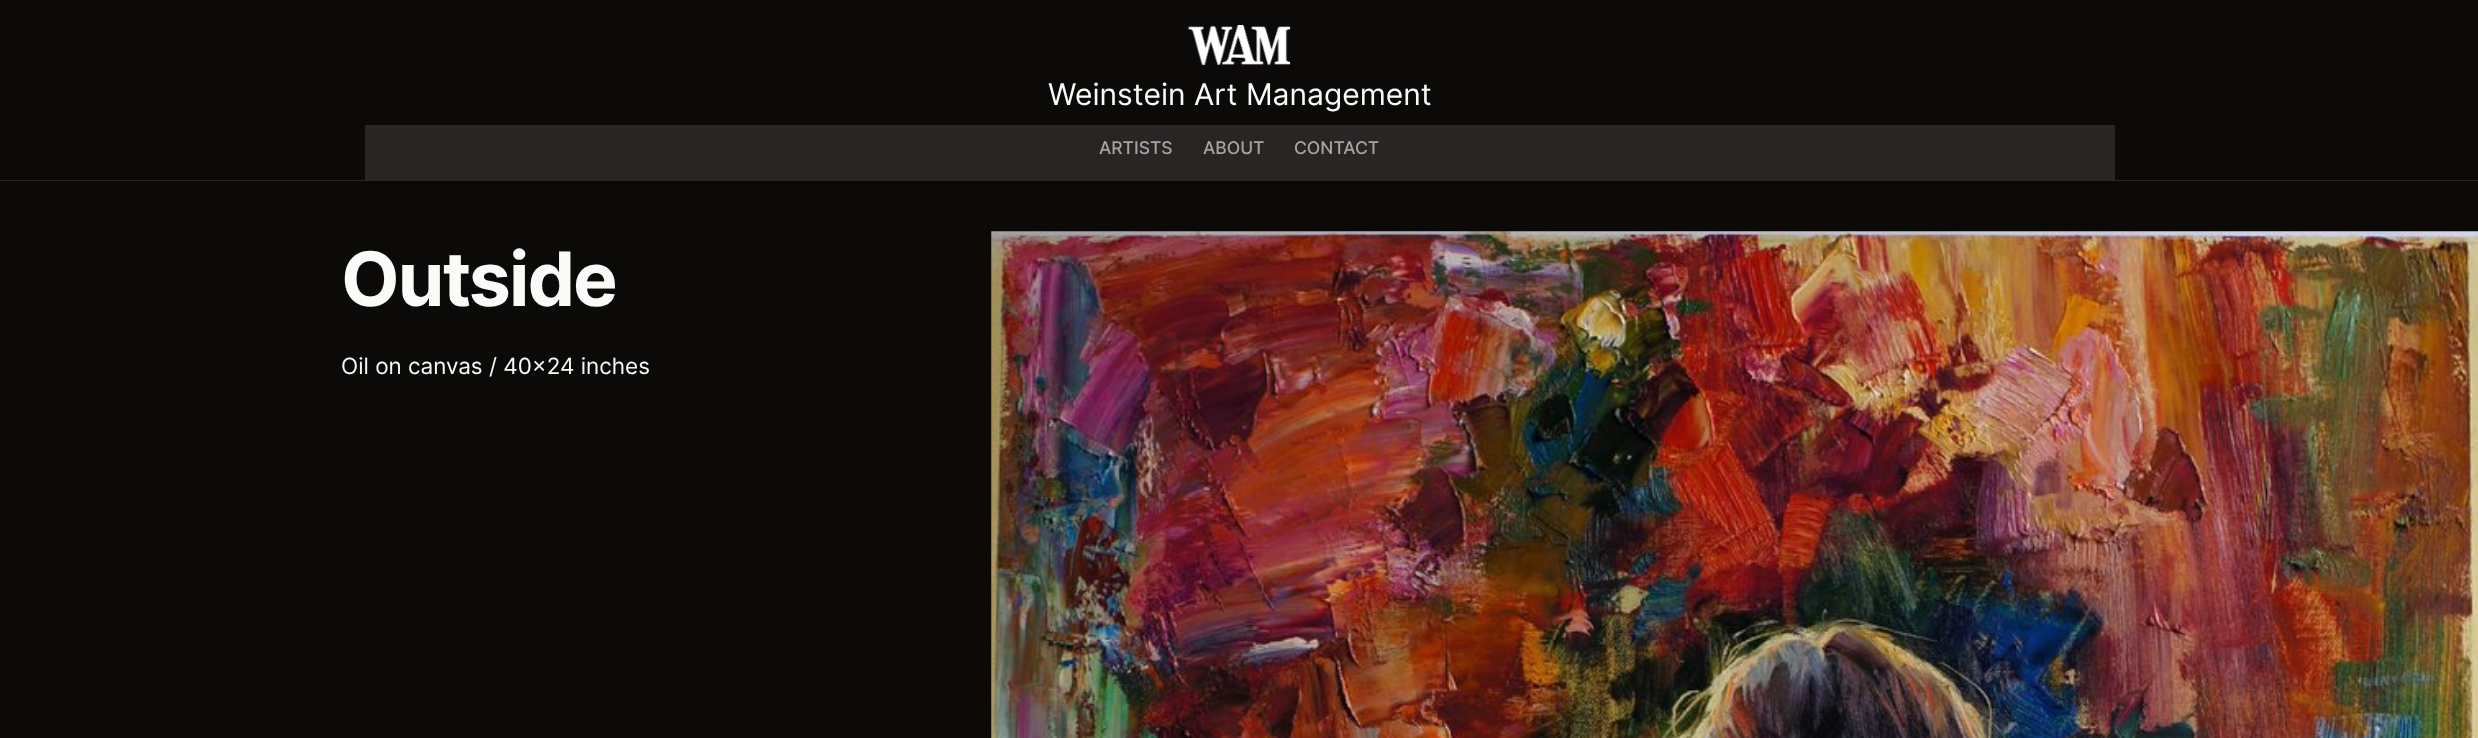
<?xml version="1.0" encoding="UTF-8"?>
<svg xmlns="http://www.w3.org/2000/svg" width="2478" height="738">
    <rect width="100%" height="100%" fill="#0C0A09"/>
    <rect x="0" y="180" width="2478" height="1" fill="#292524"/>
    <image x="1188" y="25" width="103" height="40" href="img_01.png"/>
    <text x="1048" y="105" font-family="Inter" font-size="30" fill="#FAFAF9">Weinstein Art Management</text>
    <rect x="365" y="125" width="1750" height="55" fill="#292524"/>
    <text x="1099" y="154" font-family="Inter" font-size="17.5" font-weight="500" fill="#A6A5A4">ARTISTS</text>
    <text x="1203" y="154" font-family="Inter" font-size="17.5" font-weight="500" fill="#A6A5A4">ABOUT</text>
    <text x="1294" y="154" font-family="Inter" font-size="17.5" font-weight="500" fill="#A6A5A4">CONTACT</text>
    <text x="341" y="306" font-family="Inter" font-size="75" font-weight="700" letter-spacing="-2" fill="#FAFAF9">Outside</text>
    <text x="341" y="374" font-family="Inter" font-size="22.5" fill="#FAFAF9">Oil on canvas / 40x24 inches</text>
    <image x="991" y="231" width="1487" height="507" href="img_02.png"/>
</svg>
